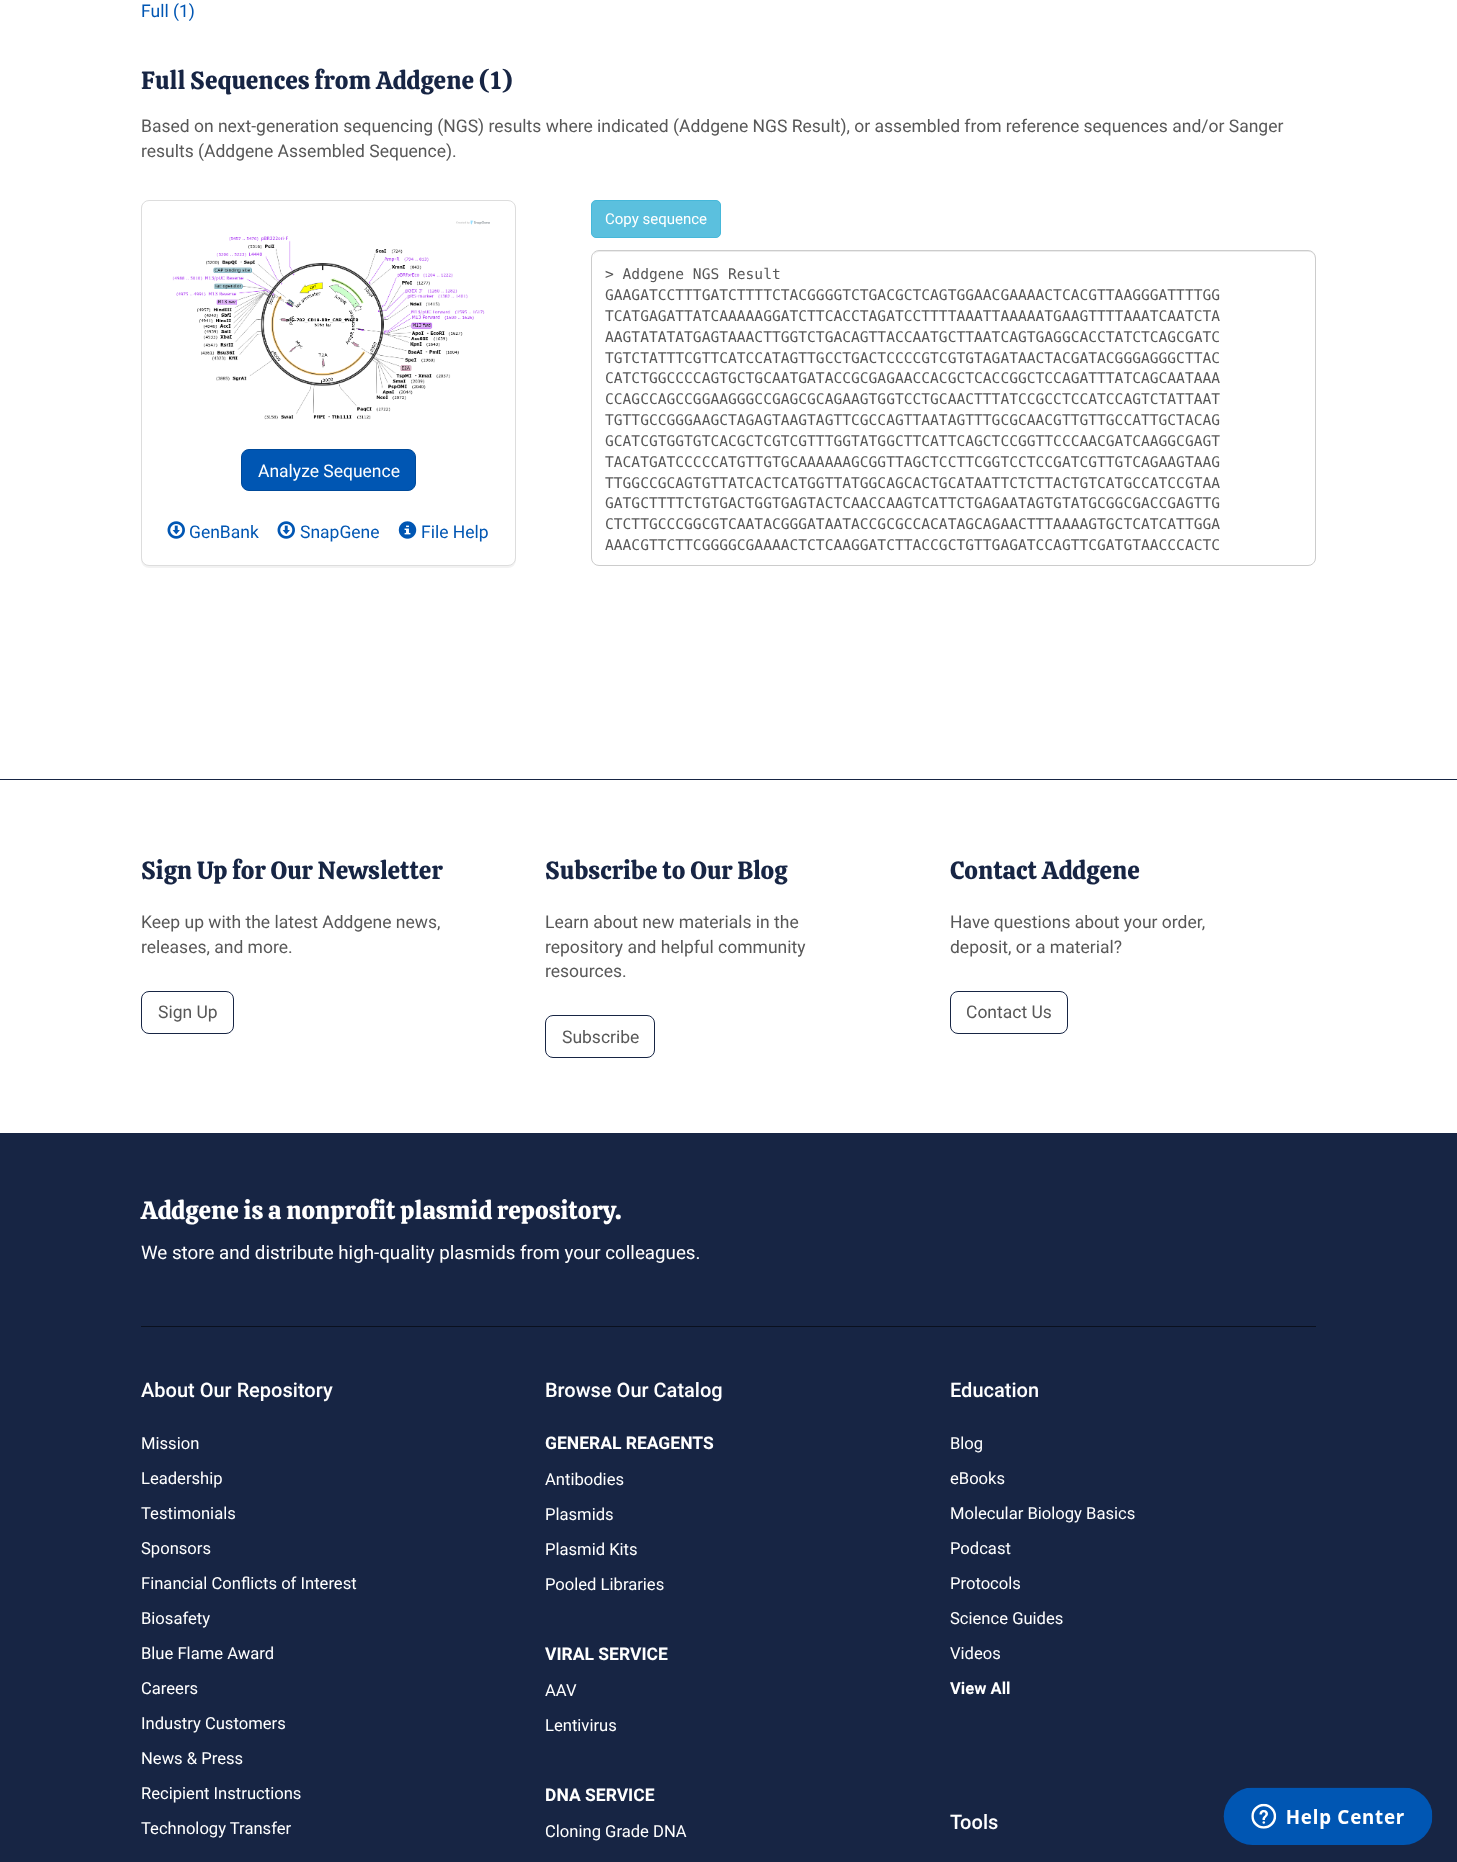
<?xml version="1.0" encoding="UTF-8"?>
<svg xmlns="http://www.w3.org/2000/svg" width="1457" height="1862">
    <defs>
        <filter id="blur1" x="-50%" y="-200%" width="200%" height="500%"><feGaussianBlur stdDeviation="0.5"/></filter>
    </defs>
    <rect width="100%" height="100%" fill="#FFFFFF"/>
    <text x="141" y="17" font-family="Roboto" font-size="17.5" fill="#0056B3">Full (1)</text>
    <text x="141" y="89" font-family="Calistoga" font-size="25" fill="#172544">Full Sequences from Addgene (1)</text>
    <text font-family="Roboto" font-size="17.5" fill="#585858">
        <tspan x="141" y="132">Based on next-generation sequencing (NGS) results where indicated (Addgene NGS Result), or assembled from reference sequences and/or Sanger</tspan>
        <tspan x="141" y="157">results (Addgene Assembled Sequence).</tspan>
    </text>
    <rect x="591.5" y="200.5" width="129" height="37" rx="4.5" fill="#5BC0DE" stroke="#46B8DA"/>
    <text x="605" y="224" font-family="Roboto" font-size="15" fill="#FFFFFF">Copy sequence</text>
    <rect x="141" y="201" width="375" height="367" rx="8" fill="#000000" fill-opacity="0.05" filter="url(#blur1)"/>
    <rect x="141.5" y="200.5" width="374" height="365" rx="7.5" fill="#FFFFFF" stroke="#DDDDDD"/>
    <image x="172" y="220" width="318" height="200" href="img_01.png"/>
    <rect x="241.5" y="449.5" width="174" height="41" rx="7.5" fill="#0056B3" stroke="#004A9A"/>
    <text x="258" y="477" font-family="Roboto" font-size="17.5" fill="#FFFFFF">Analyze Sequence</text>
    <image x="167" y="521" width="18" height="18" href="img_02.png"/>
    <text x="189" y="538" font-family="Roboto" font-size="17.5" fill="#0056B3">GenBank</text>
    <image x="277" y="521" width="18" height="18" href="img_02.png"/>
    <text x="300" y="538" font-family="Roboto" font-size="17.5" fill="#0056B3">SnapGene</text>
    <image x="398" y="521" width="19" height="18" href="img_03.png"/>
    <text x="421" y="538" font-family="Roboto" font-size="17.5" fill="#0056B3">File Help</text>
    <path d="M 599 252 H 1309 C 1312 252 1315 255 1315 259 V 257 C 1315 254 1312 251 1309 251 H 599 C 597 251 594 252 594 255 C 595 253 597 252 599 252 Z" fill="#ECECEC"/>
    <rect x="591.5" y="250.5" width="724" height="315" rx="7.5" fill="none" stroke="#CCCCCC"/>
    <text font-family="DejaVu Sans Mono" font-size="14.6" fill="#585858">
        <tspan x="605" y="279">&gt; Addgene NGS Result</tspan>
        <tspan x="605" y="300">GAAGATCCTTTGATCTTTTCTACGGGGTCTGACGCTCAGTGGAACGAAAACTCACGTTAAGGGATTTTGG</tspan>
        <tspan x="605" y="321">TCATGAGATTATCAAAAAGGATCTTCACCTAGATCCTTTTAAATTAAAAATGAAGTTTTAAATCAATCTA</tspan>
        <tspan x="605" y="342">AAGTATATATGAGTAAACTTGGTCTGACAGTTACCAATGCTTAATCAGTGAGGCACCTATCTCAGCGATC</tspan>
        <tspan x="605" y="363">TGTCTATTTCGTTCATCCATAGTTGCCTGACTCCCCGTCGTGTAGATAACTACGATACGGGAGGGCTTAC</tspan>
        <tspan x="605" y="383">CATCTGGCCCCAGTGCTGCAATGATACCGCGAGAACCACGCTCACCGGCTCCAGATTTATCAGCAATAAA</tspan>
        <tspan x="605" y="404">CCAGCCAGCCGGAAGGGCCGAGCGCAGAAGTGGTCCTGCAACTTTATCCGCCTCCATCCAGTCTATTAAT</tspan>
        <tspan x="605" y="425">TGTTGCCGGGAAGCTAGAGTAAGTAGTTCGCCAGTTAATAGTTTGCGCAACGTTGTTGCCATTGCTACAG</tspan>
        <tspan x="605" y="446">GCATCGTGGTGTCACGCTCGTCGTTTGGTATGGCTTCATTCAGCTCCGGTTCCCAACGATCAAGGCGAGT</tspan>
        <tspan x="605" y="467">TACATGATCCCCCATGTTGTGCAAAAAAGCGGTTAGCTCCTTCGGTCCTCCGATCGTTGTCAGAAGTAAG</tspan>
        <tspan x="605" y="488">TTGGCCGCAGTGTTATCACTCATGGTTATGGCAGCACTGCATAATTCTCTTACTGTCATGCCATCCGTAA</tspan>
        <tspan x="605" y="508">GATGCTTTTCTGTGACTGGTGAGTACTCAACCAAGTCATTCTGAGAATAGTGTATGCGGCGACCGAGTTG</tspan>
        <tspan x="605" y="529">CTCTTGCCCGGCGTCAATACGGGATAATACCGCGCCACATAGCAGAACTTTAAAAGTGCTCATCATTGGA</tspan>
        <tspan x="605" y="550">AAACGTTCTTCGGGGCGAAAACTCTCAAGGATCTTACCGCTGTTGAGATCCAGTTCGATGTAACCCACTC</tspan>
    </text>
    <rect x="0" y="779" width="1457" height="1" fill="#172544"/>
    <text x="141" y="879" font-family="Calistoga" font-size="25" fill="#172544">Sign Up for Our Newsletter</text>
    <text font-family="Roboto" font-size="17.5" fill="#585858">
        <tspan x="141" y="928">Keep up with the latest Addgene news,</tspan>
        <tspan x="141" y="953">releases, and more.</tspan>
    </text>
    <rect x="141.5" y="991.5" width="92" height="42" rx="7.5" fill="none" stroke="#172544"/>
    <text x="158" y="1018" font-family="Roboto" font-size="17.5" fill="#585858">Sign Up</text>
    <text x="545" y="879" font-family="Calistoga" font-size="25" fill="#172544">Subscribe to Our Blog</text>
    <text font-family="Roboto" font-size="17.5" fill="#585858">
        <tspan x="545" y="928">Learn about new materials in the</tspan>
        <tspan x="545" y="953">repository and helpful community</tspan>
        <tspan x="545" y="977">resources.</tspan>
    </text>
    <rect x="545.5" y="1015.5" width="109" height="42" rx="7.5" fill="none" stroke="#172544"/>
    <text x="562" y="1043" font-family="Roboto" font-size="17.5" fill="#585858">Subscribe</text>
    <text x="950" y="879" font-family="Calistoga" font-size="25" fill="#172544">Contact Addgene</text>
    <text font-family="Roboto" font-size="17.5" fill="#585858">
        <tspan x="950" y="928">Have questions about your order,</tspan>
        <tspan x="950" y="953">deposit, or a material?</tspan>
    </text>
    <rect x="950.5" y="991.5" width="117" height="42" rx="7.5" fill="none" stroke="#172544"/>
    <text x="966" y="1018" font-family="Roboto" font-size="17.5" fill="#585858">Contact Us</text>
    <rect x="0" y="1133" width="1457" height="729" fill="#172544"/>
    <text x="141" y="1219" font-family="Calistoga" font-size="25" fill="#FFFFFF">Addgene is a nonprofit plasmid repository.</text>
    <rect x="141" y="1326" width="1175" height="1" fill="#0A101E"/>
    <text x="141" y="1259" font-family="Roboto" font-size="18.75" fill="#FFFFFF">We store and distribute high-quality plasmids from your colleagues.</text>
    <text x="141" y="1397" font-family="Roboto" font-size="20" font-weight="500" fill="#FFFFFF">About Our Repository</text>
    <text x="141" y="1449" font-family="Roboto" font-size="16.6" fill="#FFFFFF">Mission</text>
    <text x="141" y="1484" font-family="Roboto" font-size="16.6" fill="#FFFFFF">Leadership</text>
    <text x="141" y="1519" font-family="Roboto" font-size="16.6" fill="#FFFFFF">Testimonials</text>
    <text x="141" y="1554" font-family="Roboto" font-size="16.6" fill="#FFFFFF">Sponsors</text>
    <text x="141" y="1589" font-family="Roboto" font-size="16.6" fill="#FFFFFF">Financial Conflicts of Interest</text>
    <text x="141" y="1624" font-family="Roboto" font-size="16.6" fill="#FFFFFF">Biosafety</text>
    <text x="141" y="1659" font-family="Roboto" font-size="16.6" fill="#FFFFFF">Blue Flame Award</text>
    <text x="141" y="1694" font-family="Roboto" font-size="16.6" fill="#FFFFFF">Careers</text>
    <text x="141" y="1729" font-family="Roboto" font-size="16.6" fill="#FFFFFF">Industry Customers</text>
    <text x="141" y="1764" font-family="Roboto" font-size="16.6" fill="#FFFFFF">News &amp; Press</text>
    <text x="141" y="1799" font-family="Roboto" font-size="16.6" fill="#FFFFFF">Recipient Instructions</text>
    <text x="141" y="1834" font-family="Roboto" font-size="16.6" fill="#FFFFFF">Technology Transfer</text>
    <text x="545" y="1397" font-family="Roboto" font-size="20" font-weight="500" fill="#FFFFFF">Browse Our Catalog</text>
    <text x="545" y="1449" font-family="Roboto" font-size="17.5" font-weight="700" fill="#FFFFFF">GENERAL REAGENTS</text>
    <text x="545" y="1485" font-family="Roboto" font-size="16.6" fill="#FFFFFF">Antibodies</text>
    <text x="545" y="1520" font-family="Roboto" font-size="16.6" fill="#FFFFFF">Plasmids</text>
    <text x="545" y="1555" font-family="Roboto" font-size="16.6" fill="#FFFFFF">Plasmid Kits</text>
    <text x="545" y="1590" font-family="Roboto" font-size="16.6" fill="#FFFFFF">Pooled Libraries</text>
    <text x="545" y="1660" font-family="Roboto" font-size="17.5" font-weight="700" fill="#FFFFFF">VIRAL SERVICE</text>
    <text x="545" y="1696" font-family="Roboto" font-size="16.6" fill="#FFFFFF">AAV</text>
    <text x="545" y="1731" font-family="Roboto" font-size="16.6" fill="#FFFFFF">Lentivirus</text>
    <text x="545" y="1801" font-family="Roboto" font-size="17.5" font-weight="700" fill="#FFFFFF">DNA SERVICE</text>
    <text x="545" y="1837" font-family="Roboto" font-size="16.6" fill="#FFFFFF">Cloning Grade DNA</text>
    <text x="950" y="1397" font-family="Roboto" font-size="20" font-weight="500" fill="#FFFFFF">Education</text>
    <text x="950" y="1449" font-family="Roboto" font-size="16.6" fill="#FFFFFF">Blog</text>
    <text x="950" y="1484" font-family="Roboto" font-size="16.6" fill="#FFFFFF">eBooks</text>
    <text x="950" y="1519" font-family="Roboto" font-size="16.6" fill="#FFFFFF">Molecular Biology Basics</text>
    <text x="950" y="1554" font-family="Roboto" font-size="16.6" fill="#FFFFFF">Podcast</text>
    <text x="950" y="1589" font-family="Roboto" font-size="16.6" fill="#FFFFFF">Protocols</text>
    <text x="950" y="1624" font-family="Roboto" font-size="16.6" fill="#FFFFFF">Science Guides</text>
    <text x="950" y="1659" font-family="Roboto" font-size="16.6" fill="#FFFFFF">Videos</text>
    <text x="950" y="1694" font-family="Roboto" font-size="16.6" font-weight="700" fill="#FFFFFF">View All</text>
    <text x="950" y="1829" font-family="Roboto" font-size="20" font-weight="500" fill="#FFFFFF">Tools</text>
    <image x="1223" y="1787" width="210" height="58" href="img_04.png"/>
</svg>
